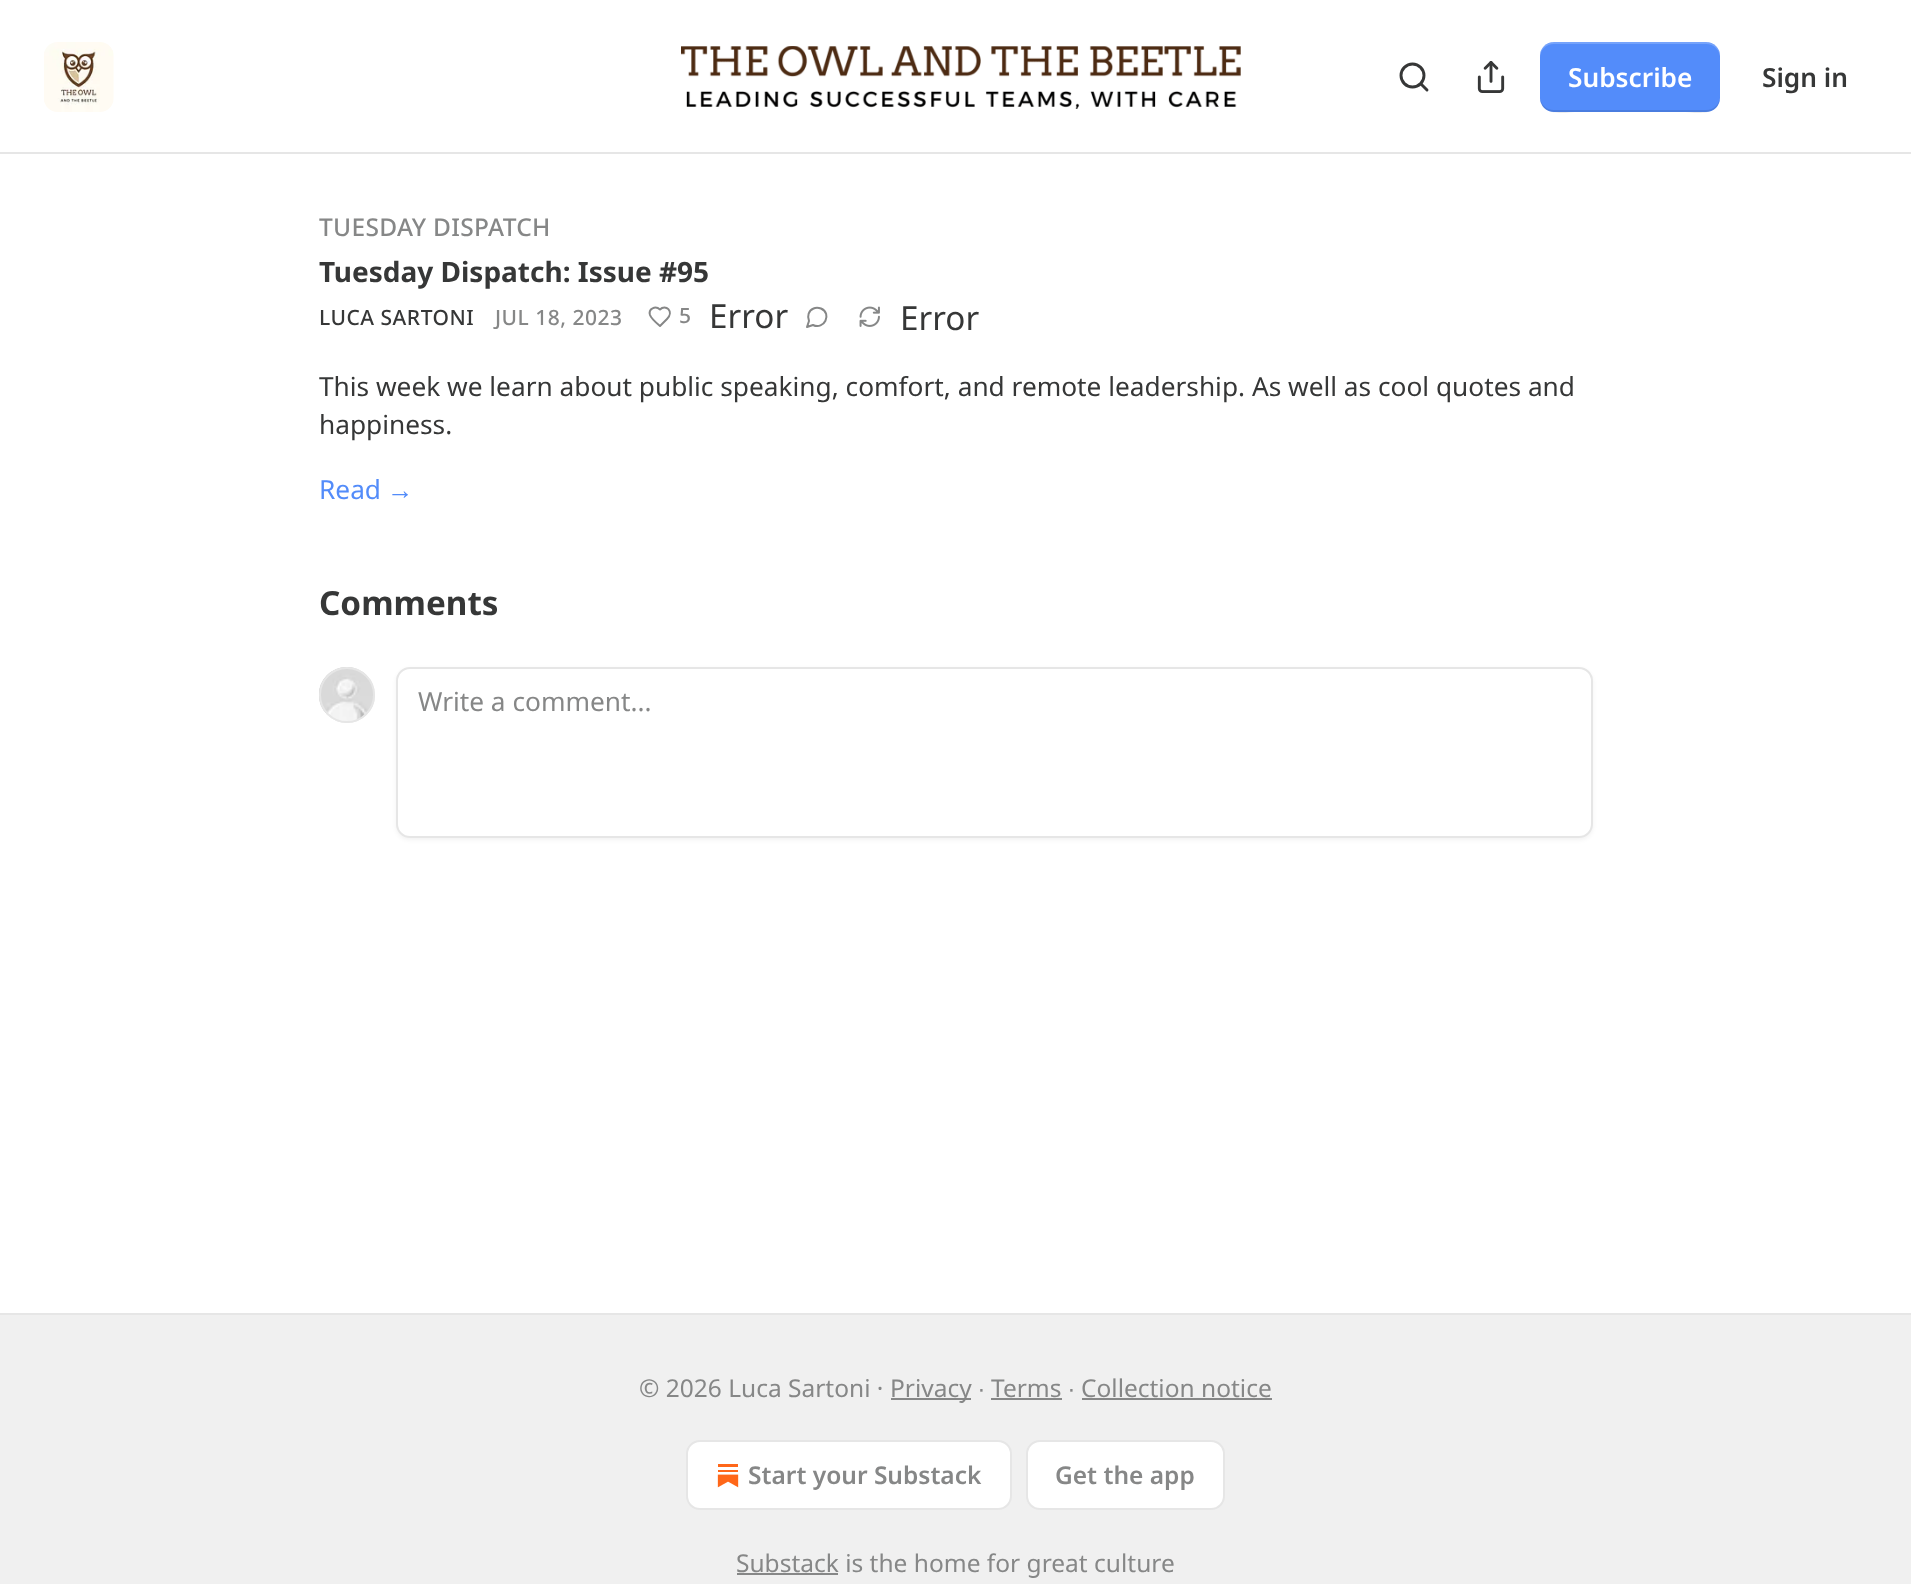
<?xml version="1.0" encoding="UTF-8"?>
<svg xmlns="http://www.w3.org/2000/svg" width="1911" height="1584">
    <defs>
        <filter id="blur1" x="-50%" y="-200%" width="200%" height="500%"><feGaussianBlur stdDeviation="2"/></filter>
    </defs>
    <rect width="100%" height="100%" fill="#FFFFFF"/>
    <rect x="0" y="152" width="1911" height="2" fill="#E6E6E6"/>
    <image x="44" y="42" width="70" height="70" href="img_01.png"/>
    <image x="681" y="46" width="560" height="63" href="img_02.png"/>
    <circle cx="1412.5" cy="75.5" r="11.5" fill="none" stroke="#363737" stroke-width="2.9"/>
    <path d="M 1427 90 L 1421 84" fill="none" stroke="#363737" stroke-width="2.9" stroke-linecap="round" stroke-linejoin="round"/>
    <image x="1477" y="61" width="28" height="32" href="img_03.png"/>
    <rect x="1540" y="42" width="180" height="70" rx="14" fill="#538CFA"/>
    <path d="M 1540 96 C 1540 118 1564 112 1579 112 H 1681 C 1696 112 1720 118 1720 96 C 1720 104 1714 110 1706 110 H 1554 C 1546 110 1540 104 1540 96 Z" fill="#000000" fill-opacity="0.1"/>
    <path d="M 1554 44 H 1706 C 1714 44 1720 50 1720 58 C 1720 36 1696 42 1681 42 H 1579 C 1564 42 1540 36 1540 58 C 1540 50 1546 44 1554 44 Z" fill="#FFFFFF" fill-opacity="0.2"/>
    <text x="1568" y="87" font-family="Noto Sans" font-size="26.25" font-weight="600" fill="#FFFFFF">Subscribe</text>
    <text x="1762" y="87" font-family="Noto Sans" font-size="26.25" font-weight="600" fill="#363737">Sign in</text>
    <text x="319" y="236" font-family="Noto Sans" font-size="24.5" font-weight="500" letter-spacing="0.3" fill="#868787">TUESDAY DISPATCH</text>
    <text x="319" y="282" font-family="Noto Sans" font-size="28" font-weight="700" fill="#363737">Tuesday Dispatch: Issue #95</text>
    <text x="319" y="325" font-family="Noto Sans" font-size="21" font-weight="500" letter-spacing="0.5" fill="#363737">LUCA SARTONI</text>
    <text x="495" y="325" font-family="Noto Sans" font-size="21" font-weight="500" letter-spacing="0.5" fill="#868787">JUL 18, 2023</text>
    <path d="M 667 319 C 674.5 311.5 665.5 303.5 660 309.5 C 655.5 305.5 648 308.5 650 315 C 651 318 657 323.5 660 326 Z" fill="none" stroke="#868787" stroke-width="2" stroke-linecap="round" stroke-linejoin="round"/>
    <text x="679" y="323" font-family="Noto Sans" font-size="21" font-weight="500" letter-spacing="0.5" fill="#868787">5</text>
    <text x="709" y="328" font-family="Noto Sans" font-size="33.25" fill="#363737">Error</text>
    <path d="M 813 325 C 824 330.5 832.5 313.5 821 308.5 C 818.5 307.5 815.5 307.5 813.5 308.5 C 808.5 310.5 807 316.5 809 321 L 807 327 Z" fill="none" stroke="#868787" stroke-width="2" stroke-linecap="round" stroke-linejoin="round"/>
    <image x="859" y="306" width="21" height="21" href="img_04.png"/>
    <text x="900" y="330" font-family="Noto Sans" font-size="33.25" fill="#363737">Error</text>
    <text font-family="Noto Sans" font-size="26.25" fill="#363737">
        <tspan x="319" y="396">This week we learn about public speaking, comfort, and remote leadership. As well as cool quotes and</tspan>
        <tspan x="319" y="434">happiness.</tspan>
    </text>
    <text x="319" y="499" font-family="Noto Sans" font-size="26.25" fill="#538CFA">Read</text>
    <text x="387" y="499" font-family="Liberation Sans" font-size="26.25" fill="#538CFA">→</text>
    <text x="319" y="615" font-family="Noto Sans" font-size="33.25" font-weight="700" fill="#363737">Comments</text>
    <circle cx="347" cy="695" r="27" fill="none" stroke="#E6E6E6" stroke-width="2"/>
    <image x="319" y="667" width="55" height="55" href="img_05.png"/>
    <circle cx="347" cy="695" r="27" fill="none" stroke="#E6E6E6" stroke-width="2"/>
    <rect x="396" y="669" width="1197" height="171" rx="14" fill="#000000" fill-opacity="0.05" filter="url(#blur1)"/>
    <rect x="397" y="668" width="1195" height="169" rx="13" fill="#FFFFFF" stroke="#E6E6E6" stroke-width="2"/>
    <text x="418" y="711" font-family="Noto Sans" font-size="26.25" fill="#868787">Write a comment...</text>
    <rect x="0" y="1315" width="1911" height="269" fill="#F0F0F0"/>
    <rect x="0" y="1313" width="1911" height="2" fill="#E6E6E6"/>
    <text x="639" y="1397" font-family="Noto Sans" font-size="24.5" fill="#868787">© 2026 Luca Sartoni ·</text>
    <rect x="891" y="1398" width="80" height="2" fill="#868787"/>
    <text x="890" y="1397" font-family="Noto Sans" font-size="24.5" fill="#868787">Privacy</text>
    <text x="978" y="1397" font-family="Liberation Sans" font-size="24.5" fill="#868787">∙</text>
    <text x="991" y="1397" font-family="Noto Sans" font-size="24.5" fill="#868787">Terms</text>
    <rect x="991" y="1398" width="71" height="2" fill="#868787"/>
    <text x="1068" y="1397" font-family="Liberation Sans" font-size="24.5" fill="#868787">∙</text>
    <text x="1081" y="1397" font-family="Noto Sans" font-size="24.5" fill="#868787">Collection notice</text>
    <rect x="1082" y="1398" width="190" height="2" fill="#868787"/>
    <rect x="687" y="1441" width="324" height="68" rx="13" fill="#FFFFFF" stroke="#E6E6E6" stroke-width="2"/>
    <image x="717" y="1464" width="22" height="24" href="img_06.png"/>
    <text x="748" y="1484" font-family="Noto Sans" font-size="24.5" font-weight="600" fill="#868787">Start your Substack</text>
    <rect x="1027" y="1441" width="197" height="68" rx="13" fill="#FFFFFF" stroke="#E6E6E6" stroke-width="2"/>
    <text x="1055" y="1484" font-family="Noto Sans" font-size="24.5" font-weight="600" fill="#868787">Get the app</text>
    <rect x="737" y="1573" width="101" height="2" fill="#868787"/>
    <text x="736" y="1572" font-family="Noto Sans" font-size="24.5" fill="#868787">Substack is the home for great culture</text>
</svg>
